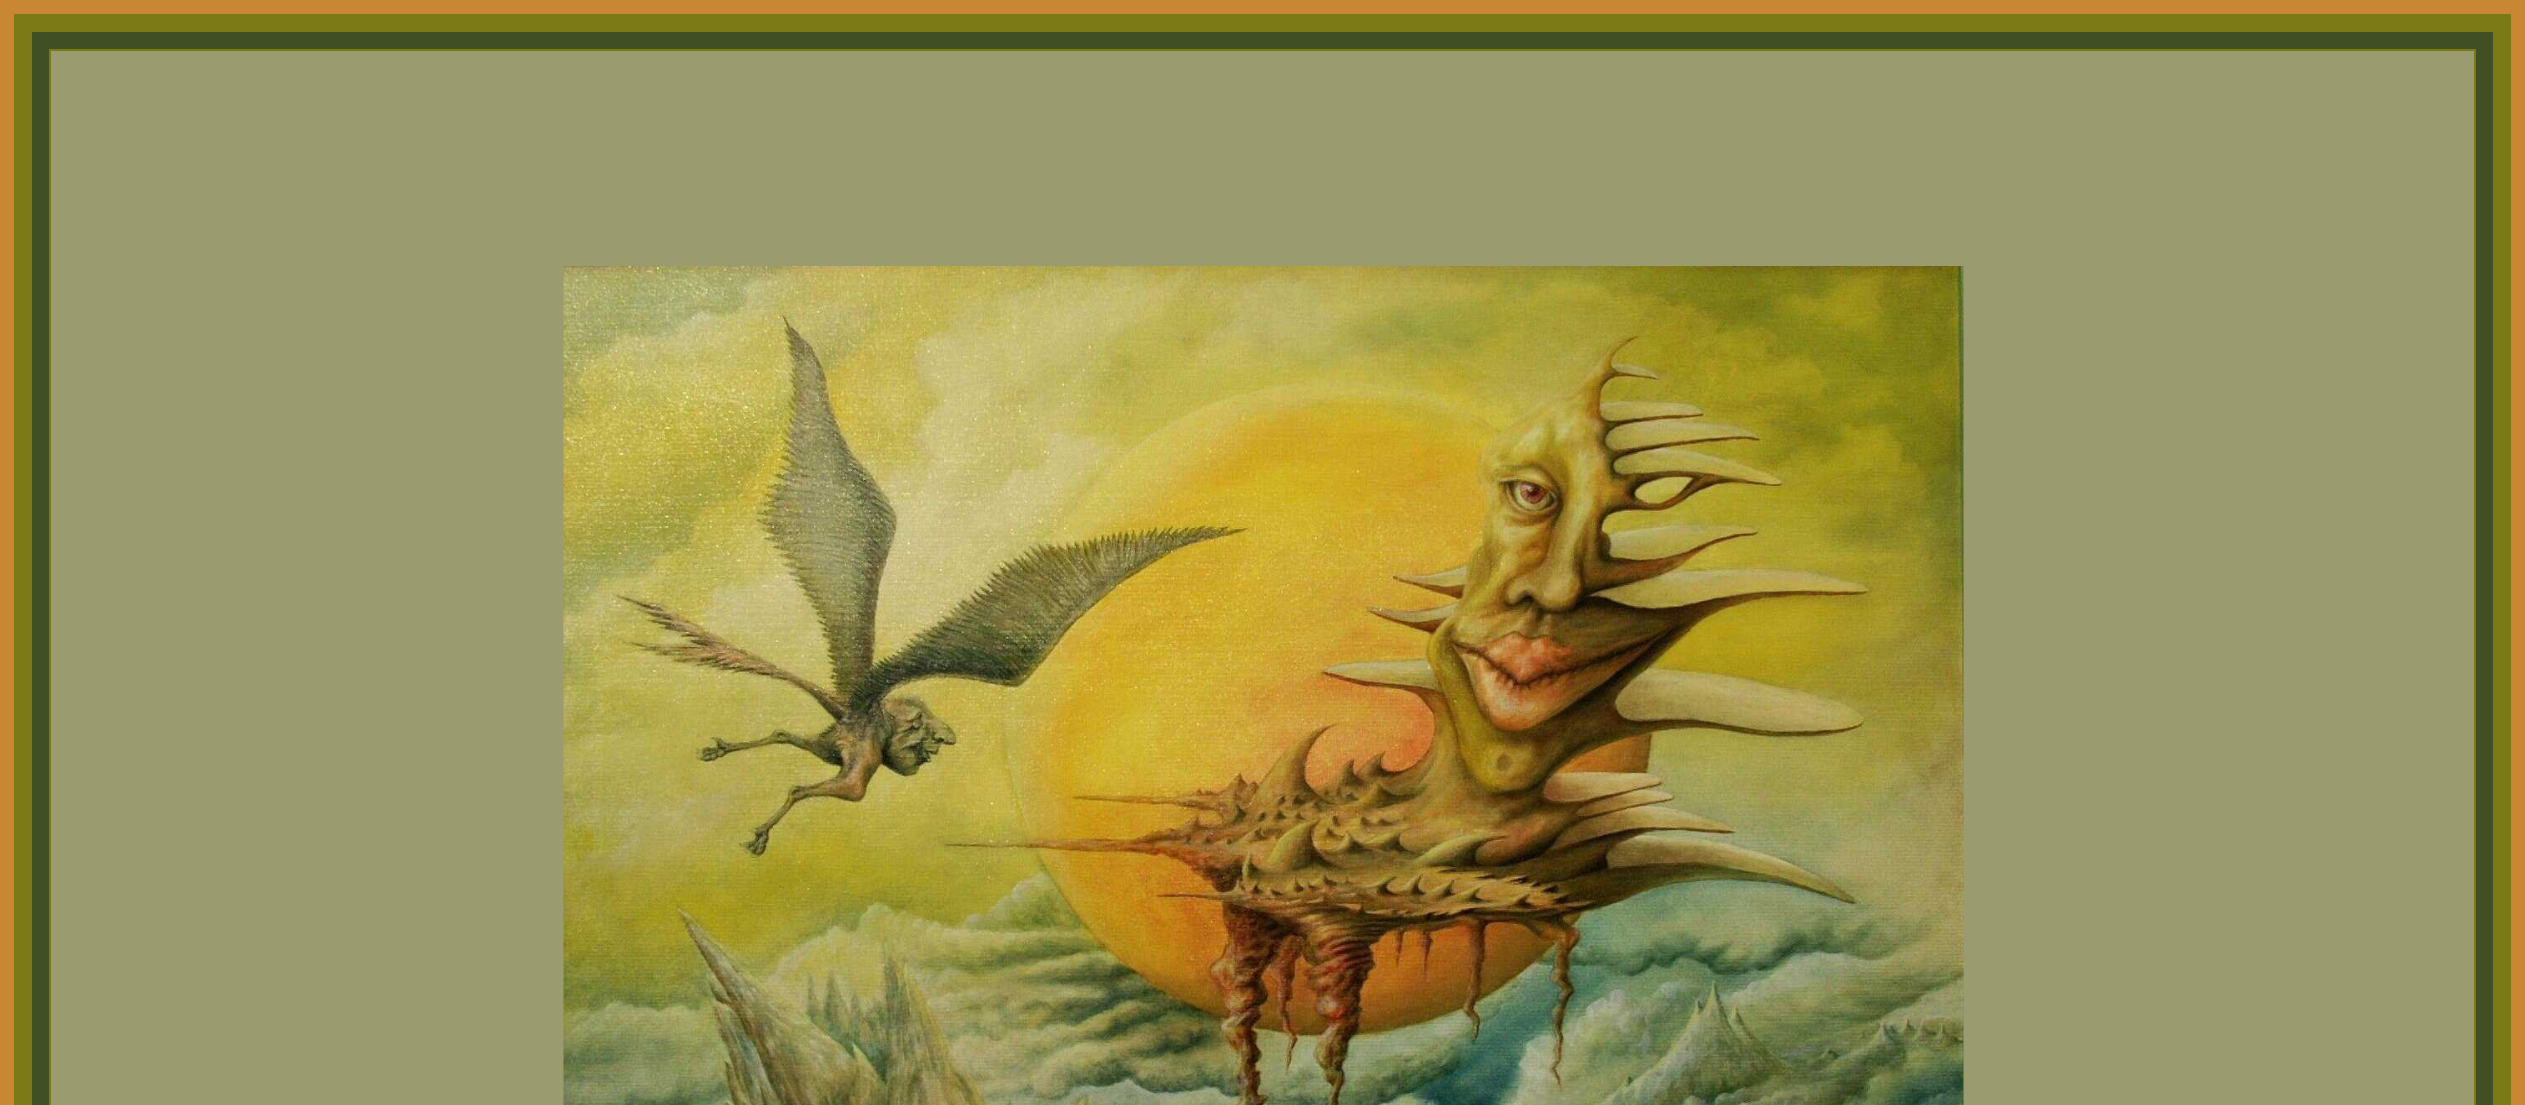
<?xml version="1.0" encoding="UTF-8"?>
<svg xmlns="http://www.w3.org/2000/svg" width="2525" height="1105">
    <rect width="100%" height="100%" fill="#C98733"/>
    <rect x="23" y="23" width="2479" height="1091" fill="#404F24" stroke="#7C7A16" stroke-width="18"/>
    <rect x="50" y="50" width="2425" height="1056" fill="#9A9B6F" stroke="#7C7A16" stroke-width="2"/>
    <image x="563" y="266" width="1401" height="839" href="img_01.png"/>
</svg>
